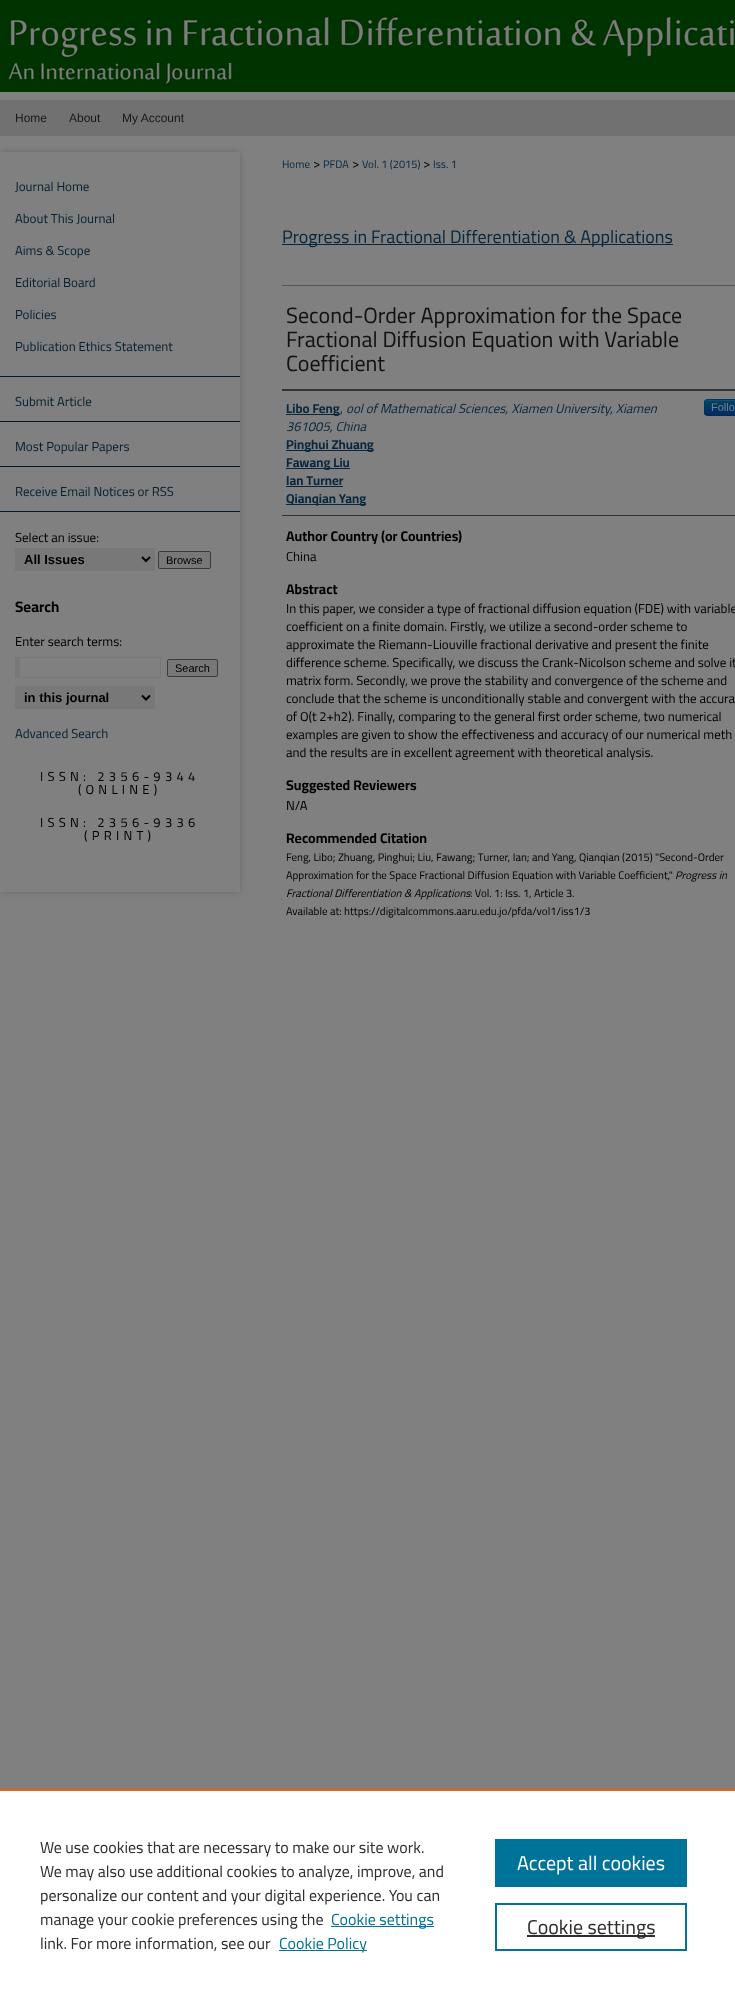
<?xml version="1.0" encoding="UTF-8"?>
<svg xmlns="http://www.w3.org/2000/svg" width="735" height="1999">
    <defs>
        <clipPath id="clip1"><path d="M 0 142 H 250 V 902 H 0 Z M 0 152 H 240 V 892 H 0 Z" clip-rule="evenodd"/></clipPath>
        <filter id="blur1" x="-50%" y="-200%" width="200%" height="500%"><feGaussianBlur stdDeviation="3"/></filter>
        <clipPath id="clip2"><rect x="704" y="399" width="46" height="17" rx="4"/></clipPath>
        <linearGradient id="g1" gradientUnits="userSpaceOnUse" x1="727" y1="400" x2="727" y2="415"><stop offset="0" stop-color="#004466"/><stop offset="1" stop-color="#002B66"/></linearGradient>
    </defs>
    <rect width="100%" height="100%" fill="#808080"/>
    <image x="0" y="0" width="735" height="100" href="img_01.png"/>
    <rect x="0" y="100" width="735" height="36" fill="#717171"/>
    <text x="15" y="122" font-family="Liberation Sans" font-size="12" fill="#191919">Home</text>
    <text x="69" y="122" font-family="Liberation Sans" font-size="12" fill="#191919">About</text>
    <text x="122" y="122" font-family="Liberation Sans" font-size="12" fill="#191919">My Account</text>
    <g clip-path="url(#clip1)">
        <rect x="0" y="152" width="240" height="740" fill="#666666" filter="url(#blur1)"/>
    </g>
    <text x="15" y="191" font-family="Cairo" font-size="13" fill="#072031">Journal Home</text>
    <text x="15" y="223" font-family="Cairo" font-size="13" fill="#072031">About This Journal</text>
    <text x="15" y="255" font-family="Cairo" font-size="13" fill="#072031">Aims &amp; Scope</text>
    <text x="15" y="287" font-family="Cairo" font-size="13" fill="#072031">Editorial Board</text>
    <text x="15" y="319" font-family="Cairo" font-size="13" fill="#072031">Policies</text>
    <text x="15" y="351" font-family="Cairo" font-size="13" fill="#072031">Publication Ethics Statement</text>
    <rect x="0" y="376" width="240" height="1" fill="#051625"/>
    <rect x="0" y="421" width="240" height="1" fill="#051625"/>
    <text x="15" y="406" font-family="Cairo" font-size="13" fill="#072031">Submit Article</text>
    <rect x="0" y="466" width="240" height="1" fill="#051625"/>
    <text x="15" y="451" font-family="Cairo" font-size="13" fill="#072031">Most Popular Papers</text>
    <rect x="0" y="511" width="240" height="1" fill="#051625"/>
    <text x="15" y="496" font-family="Cairo" font-size="13" fill="#072031">Receive Email Notices or RSS</text>
    <text x="15" y="542" font-family="Cairo" font-size="13" fill="#000000">Select an issue:</text>
    <rect x="20" y="549" width="134" height="21" fill="#787878"/>
    <rect x="15" y="548" width="140" height="1" fill="#787878"/>
    <rect x="154" y="548" width="1" height="23" fill="#787878"/>
    <rect x="15" y="570" width="140" height="1" fill="#787878"/>
    <rect x="15" y="548" width="5" height="23" fill="#787878"/>
    <path d="M 142 557 L 146 561 L 150 557" fill="none" stroke="#000000" stroke-width="2"/>
    <text x="24" y="564" font-family="Liberation Sans" font-size="13" font-weight="700" fill="#000000">All Issues</text>
    <rect x="158.5" y="551.5" width="52" height="17" rx="1.5" fill="#787878" stroke="#3B3B3B"/>
    <text x="166" y="564" font-family="Liberation Sans" font-size="11" fill="#000000">Browse</text>
    <text x="15" y="612" font-family="Cairo" font-size="15" font-weight="700" fill="#000000">Search</text>
    <text x="15" y="646" font-family="Cairo" font-size="13" fill="#000000">Enter search terms:</text>
    <rect x="15" y="657" width="146" height="1" fill="#787878"/>
    <rect x="160" y="657" width="1" height="21" fill="#787878"/>
    <rect x="15" y="677" width="146" height="1" fill="#787878"/>
    <rect x="15" y="657" width="5" height="21" fill="#787878"/>
    <rect x="167.5" y="659.5" width="50" height="17" rx="1.5" fill="#787878" stroke="#3B3B3B"/>
    <text x="175" y="672" font-family="Liberation Sans" font-size="11" fill="#000000">Search</text>
    <rect x="20" y="687" width="134" height="21" fill="#787878"/>
    <rect x="15" y="686" width="140" height="1" fill="#787878"/>
    <rect x="154" y="686" width="1" height="23" fill="#787878"/>
    <rect x="15" y="708" width="140" height="1" fill="#787878"/>
    <rect x="15" y="686" width="5" height="23" fill="#787878"/>
    <path d="M 142 695.5 L 146 699.5 L 150 695.5" fill="none" stroke="#000000" stroke-width="2"/>
    <text x="24" y="702" font-family="Liberation Sans" font-size="13" font-weight="700" fill="#000000">in this journal</text>
    <text x="15" y="738" font-family="Cairo" font-size="13" fill="#072031">Advanced Search</text>
    <text x="40" y="781" font-family="Cairo" font-size="13" letter-spacing="4.25" fill="#000000">ISSN: 2356-9344</text>
    <text x="78" y="794" font-family="Cairo" font-size="13" letter-spacing="4.25" fill="#000000">(ONLINE)</text>
    <text x="40" y="827" font-family="Cairo" font-size="13" letter-spacing="4.25" fill="#000000">ISSN: 2356-9336</text>
    <text x="84" y="840" font-family="Cairo" font-size="13" letter-spacing="4.25" fill="#000000">(PRINT)</text>
    <text x="282" y="168" font-family="Cairo" font-size="11" fill="#08273E">Home</text>
    <text x="313" y="168" font-family="Cairo" font-size="13" fill="#000000">&gt;</text>
    <text x="323" y="168" font-family="Cairo" font-size="11" fill="#08273E">PFDA</text>
    <text x="352" y="168" font-family="Cairo" font-size="13" fill="#000000">&gt;</text>
    <text x="362" y="168" font-family="Cairo" font-size="11" fill="#08273E">Vol. 1 (2015)</text>
    <text x="423" y="168" font-family="Cairo" font-size="13" fill="#000000">&gt;</text>
    <text x="433" y="168" font-family="Cairo" font-size="11" fill="#08273E">Iss. 1</text>
    <rect x="282" y="244" width="391" height="1" fill="#08273E"/>
    <text x="282" y="243" font-family="Cairo" font-size="18" fill="#08273E">Progress in Fractional Differentiation &amp; Applications</text>
    <rect x="282" y="285" width="453" height="1" fill="#555555"/>
    <text font-family="Cairo" font-size="22" fill="#111111">
        <tspan x="286" y="323">Second-Order Approximation for the Space</tspan>
        <tspan x="286" y="347">Fractional Diffusion Equation with Variable</tspan>
        <tspan x="286" y="371">Coefficient</tspan>
    </text>
    <rect x="282" y="389" width="453" height="2" fill="#333333"/>
    <rect x="282" y="515" width="453" height="1" fill="#333333"/>
    <rect x="286" y="414" width="54" height="1" fill="#08273E"/>
    <text x="286" y="413" font-family="Cairo" font-size="13" font-weight="700" fill="#08273E">Libo Feng</text>
    <text x="340" y="413" font-family="Cairo" font-size="13" fill="#08273E">,</text>
    <text x="346" y="413" font-family="Cairo" font-size="13" font-style="italic" fill="#08273E">ool of Mathematical Sciences, Xiamen University, Xiamen</text>
    <text x="286" y="431" font-family="Cairo" font-size="13" font-style="italic" fill="#08273E">361005, China</text>
    <rect x="704" y="399" width="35" height="17" rx="4" fill="#003A66"/>
    <g clip-path="url(#clip2)">
        <rect x="704" y="400" width="31" height="15" fill="url(#g1)"/>
    </g>
    <path d="M 708 401 H 733 C 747 401 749 397 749 412 C 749 401 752 400 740 400 H 714 C 707 400 705 399 705 406 V 413 C 705 410 704 401 708 401 Z" fill="#808080" fill-opacity="0.2"/>
    <path d="M 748.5 414.5 C 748 415 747 415.5 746 415.5 H 708 C 707 415.5 706 415 705.5 414.5" fill="none" stroke="#000000" stroke-opacity="0.25"/>
    <path d="M 705.5 414.5 C 704 412.5 704.5 409.5 704.5 407.5 C 704.5 398.5 705 399.5 714.5 399.5 H 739.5 C 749 399.5 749.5 398.5 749.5 407.5 C 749.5 409.5 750 412.5 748.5 414.5" fill="none" stroke="#000000" stroke-opacity="0.1"/>
    <text x="711" y="411" font-family="Liberation Sans" font-size="11" fill="#808080">Follo</text>
    <rect x="286" y="450" width="88" height="1" fill="#08273E"/>
    <text x="286" y="449" font-family="Cairo" font-size="13" font-weight="700" fill="#08273E">Pinghui Zhuang</text>
    <rect x="286" y="468" width="64" height="1" fill="#08273E"/>
    <text font-family="Cairo" font-size="13" font-weight="700" fill="#08273E">
        <tspan x="286" y="467">Fawang Liu</tspan>
        <tspan x="286" y="485">Ian Turner</tspan>
    </text>
    <rect x="286" y="486" width="57" height="1" fill="#08273E"/>
    <rect x="286" y="504" width="80" height="1" fill="#08273E"/>
    <text x="286" y="503" font-family="Cairo" font-size="13" font-weight="700" fill="#08273E">Qianqian Yang</text>
    <text x="286" y="541" font-family="Cairo" font-size="14" font-weight="700" fill="#000000">Author Country (or Countries)</text>
    <text x="286" y="561" font-family="Cairo" font-size="13" fill="#000000">China</text>
    <text x="286" y="594" font-family="Cairo" font-size="14" font-weight="700" fill="#000000">Abstract</text>
    <text font-family="Cairo" font-size="13" fill="#000000">
        <tspan x="286" y="613">In this paper, we consider a type of fractional diffusion equation (FDE) with variable</tspan>
        <tspan x="286" y="631">coefficient on a finite domain. Firstly, we utilize a second-order scheme to</tspan>
        <tspan x="286" y="649">approximate the Riemann-Liouville fractional derivative and present the finite</tspan>
        <tspan x="286" y="667">difference scheme. Specifically, we discuss the Crank-Nicolson scheme and solve it</tspan>
        <tspan x="286" y="685">matrix form. Secondly, we prove the stability and convergence of the scheme and</tspan>
        <tspan x="286" y="703">conclude that the scheme is unconditionally stable and convergent with the accura</tspan>
        <tspan x="286" y="721">of O(t 2+h2). Finally, comparing to the general first order scheme, two numerical</tspan>
        <tspan x="286" y="739">examples are given to show the effectiveness and accuracy of our numerical meth</tspan>
        <tspan x="286" y="757">and the results are in excellent agreement with theoretical analysis.</tspan>
    </text>
    <text x="286" y="790" font-family="Cairo" font-size="14" font-weight="700" fill="#000000">Suggested Reviewers</text>
    <text x="286" y="810" font-family="Cairo" font-size="13" fill="#000000">N/A</text>
    <text x="286" y="843" font-family="Cairo" font-size="14" font-weight="700" fill="#000000">Recommended Citation</text>
    <text font-family="Cairo" font-size="11" fill="#000000">
        <tspan x="286" y="861">Feng, Libo; Zhuang, Pinghui; Liu, Fawang; Turner, Ian; and Yang, Qianqian (2015) "Second-Order</tspan>
        <tspan x="286" y="879">Approximation for the Space Fractional Diffusion Equation with Variable Coefficient,"</tspan>
    </text>
    <text x="675" y="879" font-family="Cairo" font-size="11" font-style="italic" fill="#000000">Progress in</text>
    <text x="286" y="897" font-family="Cairo" font-size="11" font-style="italic" fill="#000000">Fractional Differentiation &amp; Applications</text>
    <text x="470" y="897" font-family="Cairo" font-size="11" fill="#000000">: Vol. 1: Iss. 1, Article 3.</text>
    <text x="286" y="915" font-family="Cairo" font-size="11" fill="#000000">Available at: https://digitalcommons.aaru.edu.jo/pfda/vol1/iss1/3</text>
    <rect x="0" y="1791" width="735" height="208" fill="#FFFFFF"/>
    <rect x="0" y="1789" width="735" height="2" fill="#EB6500"/>
    <text font-family="Cairo" font-size="16" fill="#2E2E2E">
        <tspan x="40" y="1853">We use cookies that are necessary to make our site work.</tspan>
        <tspan x="40" y="1877">We may also use additional cookies to analyze, improve, and</tspan>
        <tspan x="40" y="1901">personalize our content and your digital experience. You can</tspan>
        <tspan x="40" y="1925">manage your cookie preferences using the</tspan>
    </text>
    <rect x="331" y="1926" width="103" height="1" fill="#007398"/>
    <text x="331" y="1925" font-family="Cairo" font-size="16" fill="#007398">Cookie settings</text>
    <text x="40" y="1949" font-family="Cairo" font-size="16" fill="#2E2E2E">link. For more information, see our</text>
    <rect x="279" y="1950" width="88" height="1" fill="#007398"/>
    <text x="279" y="1949" font-family="Cairo" font-size="16" fill="#007398">Cookie Policy</text>
    <rect x="495" y="1839" width="192" height="48" fill="#007398"/>
    <text x="517" y="1870" font-family="Cairo" font-size="20" fill="#FFFFFF">Accept all cookies</text>
    <rect x="496" y="1904" width="190" height="46" fill="none" stroke="#007398" stroke-width="2"/>
    <rect x="527" y="1935" width="128" height="2" fill="#2E2E2E"/>
    <text x="527" y="1934" font-family="Cairo" font-size="20" fill="#2E2E2E">Cookie settings</text>
</svg>
